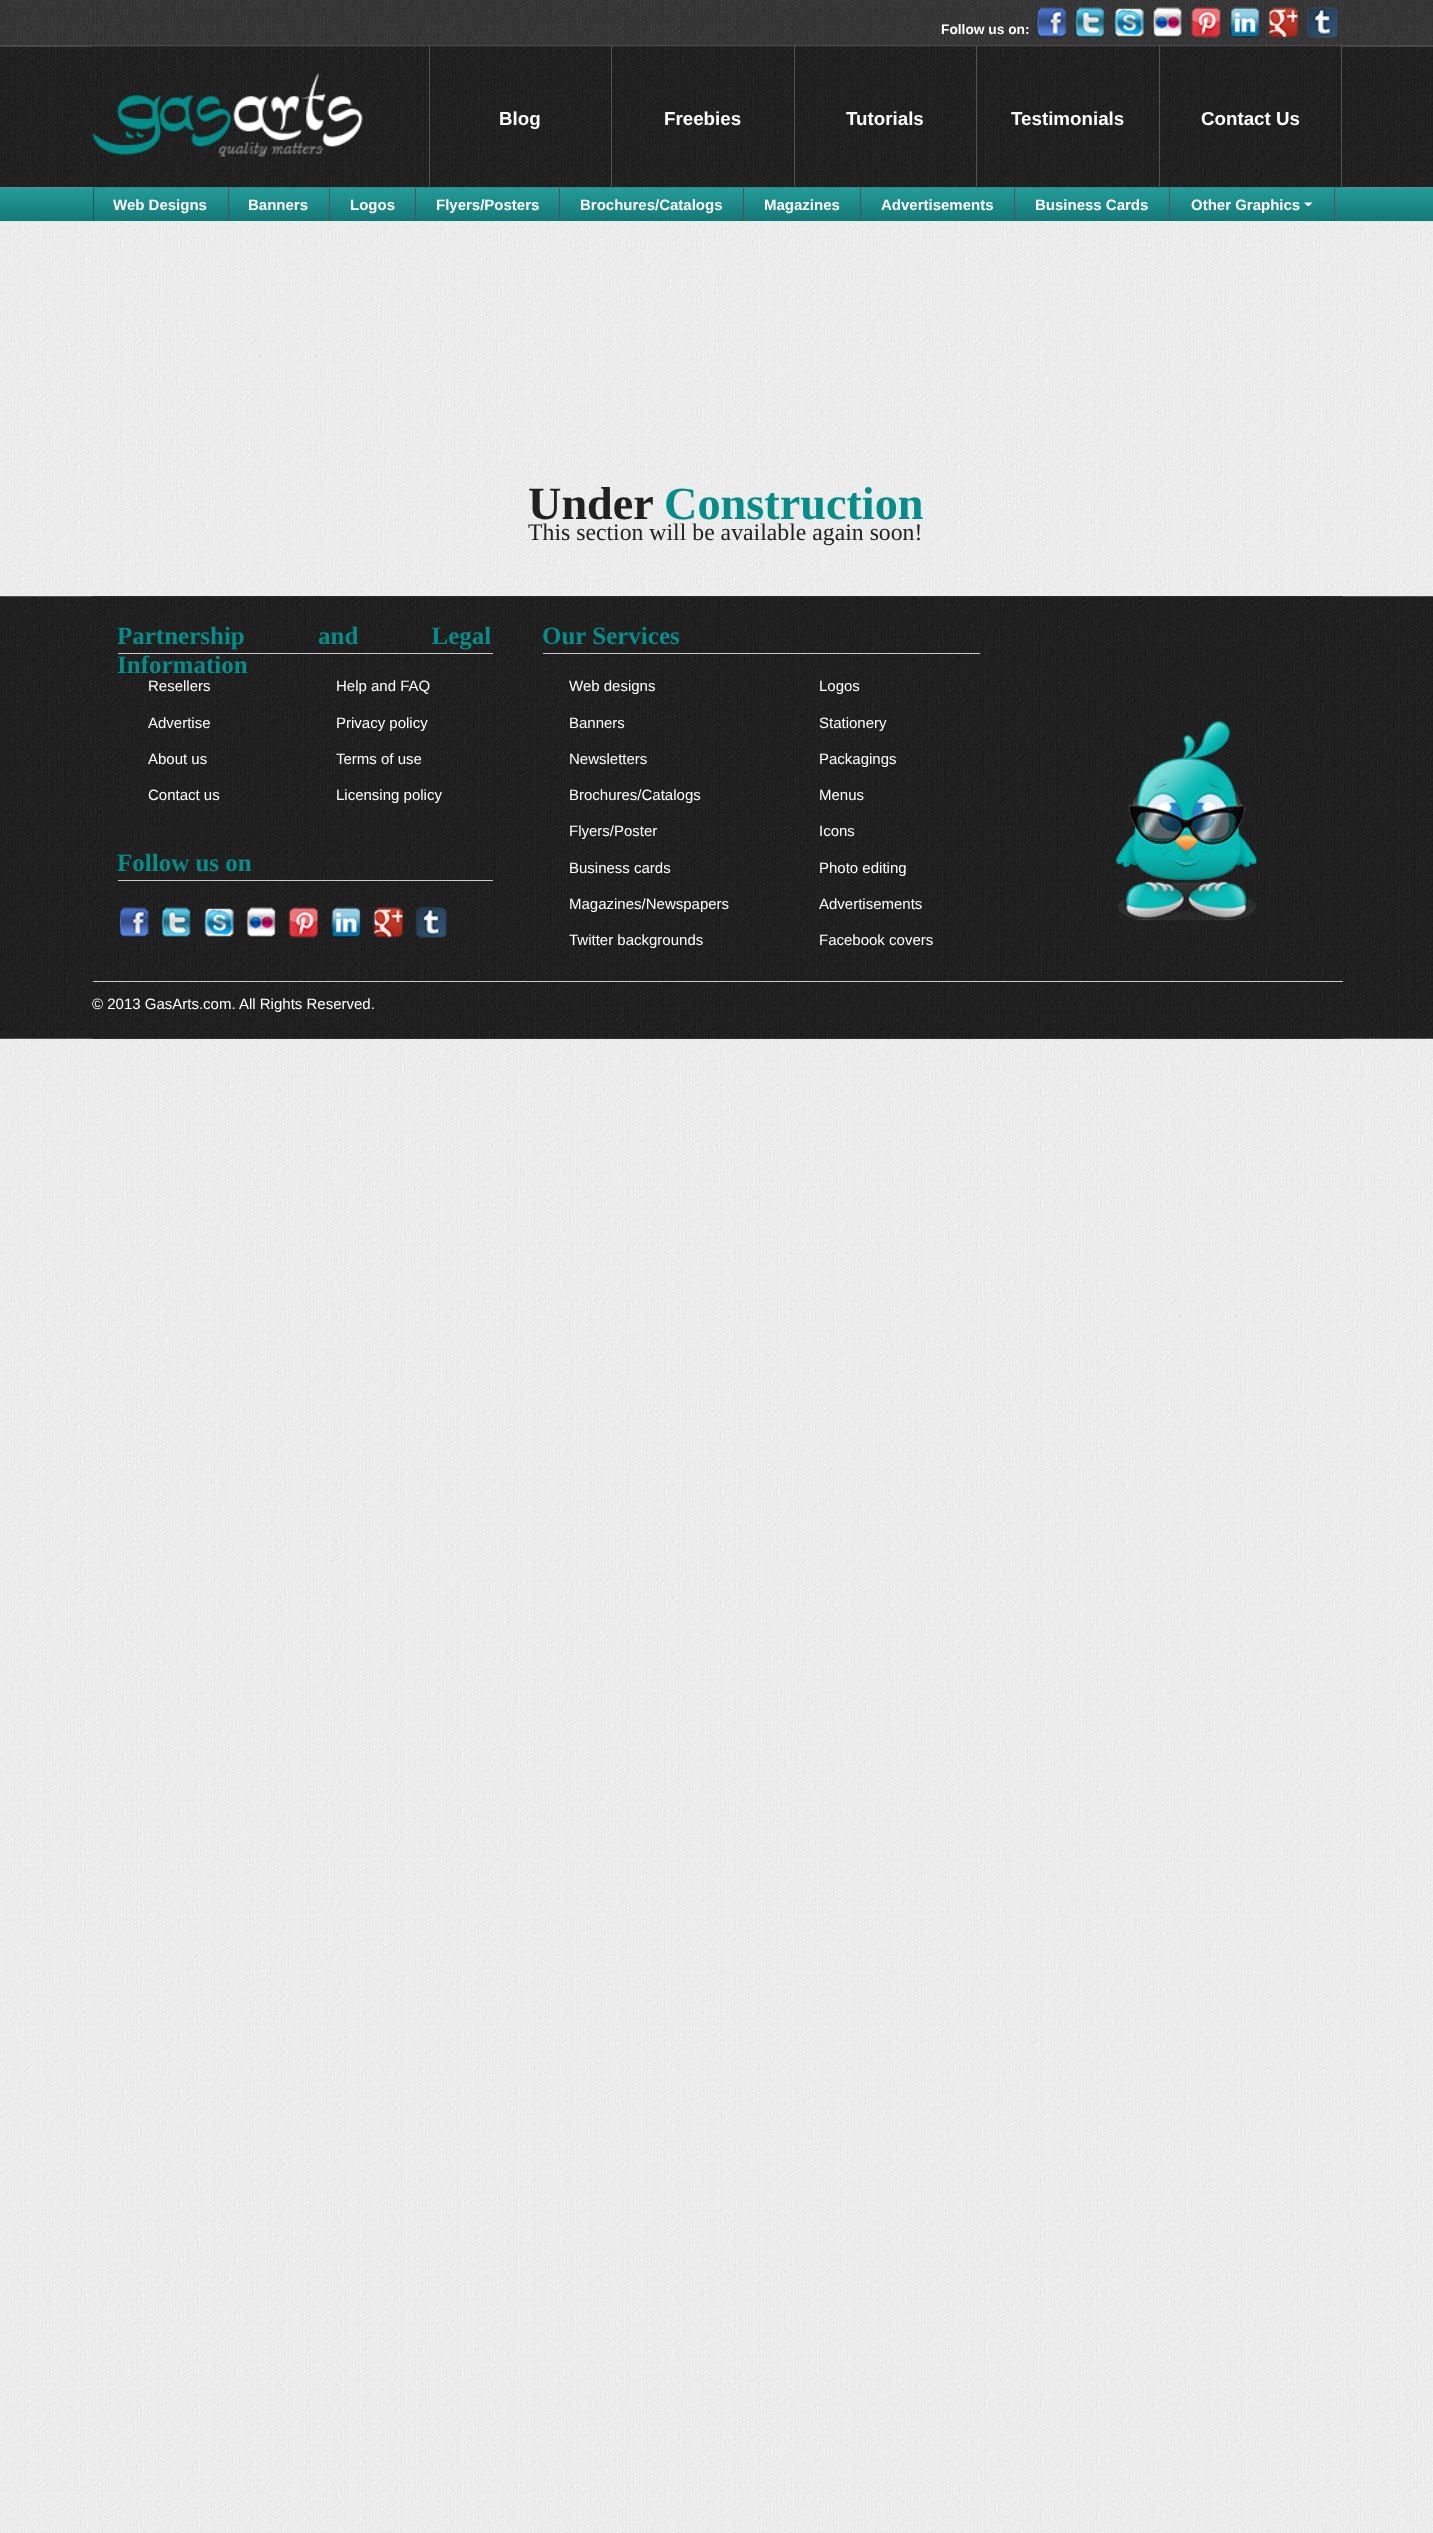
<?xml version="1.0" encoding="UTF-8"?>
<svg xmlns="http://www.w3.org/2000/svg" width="1433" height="2533">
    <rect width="100%" height="100%" fill="#FFFFFF"/>
    <image x="0" y="46" width="1433" height="2487" href="img_01.png"/>
    <image x="0" y="0" width="1433" height="47" href="img_02.png"/>
    <rect x="0" y="45" width="1433" height="1" fill="#4A4A4A"/>
    <image x="93" y="0" width="1250" height="45" href="img_03.png"/>
    <text x="941" y="34" font-family="Liberation Sans" font-size="13.75" font-weight="700" fill="#FFFFFF">Follow us on:</text>
    <image x="1036" y="7" width="31" height="31" href="img_04.png"/>
    <image x="1075" y="7" width="29" height="31" href="img_05.png"/>
    <image x="1114" y="8" width="30" height="30" href="img_06.png"/>
    <image x="1152" y="7" width="30" height="31" href="img_07.png"/>
    <image x="1191" y="7" width="30" height="31" href="img_08.png"/>
    <image x="1230" y="7" width="29" height="31" href="img_09.png"/>
    <image x="1268" y="7" width="30" height="31" href="img_10.png"/>
    <image x="1307" y="7" width="31" height="31" href="img_11.png"/>
    <image x="0" y="46" width="1433" height="142" href="img_12.png"/>
    <image x="92" y="46" width="1251" height="142" href="img_13.png"/>
    <image x="0" y="187" width="1433" height="35" href="img_15.png"/>
    <image x="92" y="187" width="1251" height="35" href="img_16.png"/>
    <rect x="429" y="46" width="1" height="142" fill="#525252"/>
    <image x="92" y="73" width="271" height="84" href="img_14.png"/>
    <rect x="611" y="46" width="1" height="142" fill="#525252"/>
    <text x="499" y="125" font-family="Liberation Sans" font-size="18.75" font-weight="700" fill="#FFFFFF">Blog</text>
    <rect x="794" y="46" width="1" height="142" fill="#525252"/>
    <text x="664" y="125" font-family="Liberation Sans" font-size="18.75" font-weight="700" fill="#FFFFFF">Freebies</text>
    <rect x="976" y="46" width="1" height="142" fill="#525252"/>
    <text x="846" y="125" font-family="Liberation Sans" font-size="18.75" font-weight="700" fill="#FFFFFF">Tutorials</text>
    <rect x="1159" y="46" width="1" height="142" fill="#525252"/>
    <text x="1011" y="125" font-family="Liberation Sans" font-size="18.75" font-weight="700" fill="#FFFFFF">Testimonials</text>
    <rect x="1341" y="46" width="1" height="142" fill="#525252"/>
    <text x="1201" y="125" font-family="Liberation Sans" font-size="18.75" font-weight="700" fill="#FFFFFF">Contact Us</text>
    <rect x="93" y="188" width="1" height="33" fill="#0D5D5C"/>
    <rect x="228" y="188" width="1" height="33" fill="#525252"/>
    <text x="113" y="210" font-family="Liberation Sans" font-size="15" font-weight="700" fill="#FFFFFF">Web Designs</text>
    <rect x="329" y="188" width="1" height="33" fill="#525252"/>
    <text x="248" y="210" font-family="Liberation Sans" font-size="15" font-weight="700" fill="#FFFFFF">Banners</text>
    <rect x="415" y="188" width="1" height="33" fill="#525252"/>
    <text x="350" y="210" font-family="Liberation Sans" font-size="15" font-weight="700" fill="#FFFFFF">Logos</text>
    <rect x="559" y="188" width="1" height="33" fill="#525252"/>
    <text x="436" y="210" font-family="Liberation Sans" font-size="15" font-weight="700" fill="#FFFFFF">Flyers/Posters</text>
    <rect x="743" y="188" width="1" height="33" fill="#525252"/>
    <text x="580" y="210" font-family="Liberation Sans" font-size="15" font-weight="700" fill="#FFFFFF">Brochures/Catalogs</text>
    <rect x="860" y="188" width="1" height="33" fill="#525252"/>
    <text x="764" y="210" font-family="Liberation Sans" font-size="15" font-weight="700" fill="#FFFFFF">Magazines</text>
    <rect x="1014" y="188" width="1" height="33" fill="#525252"/>
    <text x="881" y="210" font-family="Liberation Sans" font-size="15" font-weight="700" fill="#FFFFFF">Advertisements</text>
    <rect x="1169" y="188" width="1" height="33" fill="#525252"/>
    <text x="1035" y="210" font-family="Liberation Sans" font-size="15" font-weight="700" fill="#FFFFFF">Business Cards</text>
    <rect x="1334" y="188" width="1" height="33" fill="#525252"/>
    <text x="1191" y="210" font-family="Liberation Sans" font-size="15" font-weight="700" fill="#FFFFFF">Other Graphics</text>
    <path d="M 1304 202.5 H 1312.5 L 1309 206 H 1307.5 Z" fill="#FFFFFF"/>
    <image x="0" y="221" width="1433" height="375" href="img_17.png"/>
    <image x="92" y="221" width="1251" height="375" href="img_18.png"/>
    <text x="528" y="519" font-family="Liberation Serif" font-size="46.25" font-weight="700" fill="#212121">Under</text>
    <text x="664" y="519" font-family="Liberation Serif" font-size="46.25" font-weight="700" fill="#038E8A">Construction</text>
    <text x="528" y="540" font-family="Liberation Serif" font-size="23.75" fill="#212121">This section will be available again soon!</text>
    <image x="0" y="596" width="1433" height="443" href="img_19.png"/>
    <image x="92" y="596" width="1251" height="443" href="img_20.png"/>
    <rect x="118" y="653" width="375" height="1" fill="#CCCCCC"/>
    <text font-family="Liberation Serif" font-size="25" font-weight="700" fill="#038E8A">
        <tspan x="117" y="644" word-spacing="67">Partnership and Legal</tspan>
        <tspan x="117" y="673">Information</tspan>
    </text>
    <text x="148" y="691" font-family="Liberation Sans" font-size="15" fill="#FFFFFF">Resellers</text>
    <text x="148" y="728" font-family="Liberation Sans" font-size="15" fill="#FFFFFF">Advertise</text>
    <text x="148" y="764" font-family="Liberation Sans" font-size="15" fill="#FFFFFF">About us</text>
    <text x="148" y="800" font-family="Liberation Sans" font-size="15" fill="#FFFFFF">Contact us</text>
    <text x="336" y="691" font-family="Liberation Sans" font-size="15" fill="#FFFFFF">Help and FAQ</text>
    <text x="336" y="728" font-family="Liberation Sans" font-size="15" fill="#FFFFFF">Privacy policy</text>
    <text x="336" y="764" font-family="Liberation Sans" font-size="15" fill="#FFFFFF">Terms of use</text>
    <text x="336" y="800" font-family="Liberation Sans" font-size="15" fill="#FFFFFF">Licensing policy</text>
    <rect x="118" y="880" width="375" height="1" fill="#CCCCCC"/>
    <text x="117" y="871" font-family="Liberation Serif" font-size="25" font-weight="700" fill="#038E8A">Follow us on</text>
    <image x="119" y="907" width="30" height="31" href="img_21.png"/>
    <image x="161" y="907" width="30" height="31" href="img_22.png"/>
    <image x="204" y="908" width="30" height="30" href="img_23.png"/>
    <image x="246" y="907" width="30" height="31" href="img_24.png"/>
    <image x="288" y="907" width="30" height="31" href="img_25.png"/>
    <image x="331" y="907" width="30" height="31" href="img_26.png"/>
    <image x="373" y="907" width="30" height="31" href="img_27.png"/>
    <image x="416" y="907" width="31" height="31" href="img_28.png"/>
    <rect x="543" y="653" width="437" height="1" fill="#CCCCCC"/>
    <text x="542" y="644" font-family="Liberation Serif" font-size="25" font-weight="700" fill="#038E8A">Our Services</text>
    <text x="569" y="691" font-family="Liberation Sans" font-size="15" fill="#FFFFFF">Web designs</text>
    <text x="569" y="728" font-family="Liberation Sans" font-size="15" fill="#FFFFFF">Banners</text>
    <text x="569" y="764" font-family="Liberation Sans" font-size="15" fill="#FFFFFF">Newsletters</text>
    <text x="569" y="800" font-family="Liberation Sans" font-size="15" fill="#FFFFFF">Brochures/Catalogs</text>
    <text x="569" y="836" font-family="Liberation Sans" font-size="15" fill="#FFFFFF">Flyers/Poster</text>
    <text x="569" y="873" font-family="Liberation Sans" font-size="15" fill="#FFFFFF">Business cards</text>
    <text x="569" y="909" font-family="Liberation Sans" font-size="15" fill="#FFFFFF">Magazines/Newspapers</text>
    <text x="569" y="945" font-family="Liberation Sans" font-size="15" fill="#FFFFFF">Twitter backgrounds</text>
    <text x="819" y="691" font-family="Liberation Sans" font-size="15" fill="#FFFFFF">Logos</text>
    <text x="819" y="728" font-family="Liberation Sans" font-size="15" fill="#FFFFFF">Stationery</text>
    <text x="819" y="764" font-family="Liberation Sans" font-size="15" fill="#FFFFFF">Packagings</text>
    <text x="819" y="800" font-family="Liberation Sans" font-size="15" fill="#FFFFFF">Menus</text>
    <text x="819" y="836" font-family="Liberation Sans" font-size="15" fill="#FFFFFF">Icons</text>
    <text x="819" y="873" font-family="Liberation Sans" font-size="15" fill="#FFFFFF">Photo editing</text>
    <text x="819" y="909" font-family="Liberation Sans" font-size="15" fill="#FFFFFF">Advertisements</text>
    <text x="819" y="945" font-family="Liberation Sans" font-size="15" fill="#FFFFFF">Facebook covers</text>
    <image x="1116" y="721" width="141" height="200" href="img_29.png"/>
    <rect x="93" y="981" width="1250" height="1" fill="#CCCCCC"/>
    <text x="92" y="1009" font-family="Liberation Sans" font-size="15" fill="#FFFFFF">© 2013 GasArts.com. All Rights Reserved.</text>
</svg>
